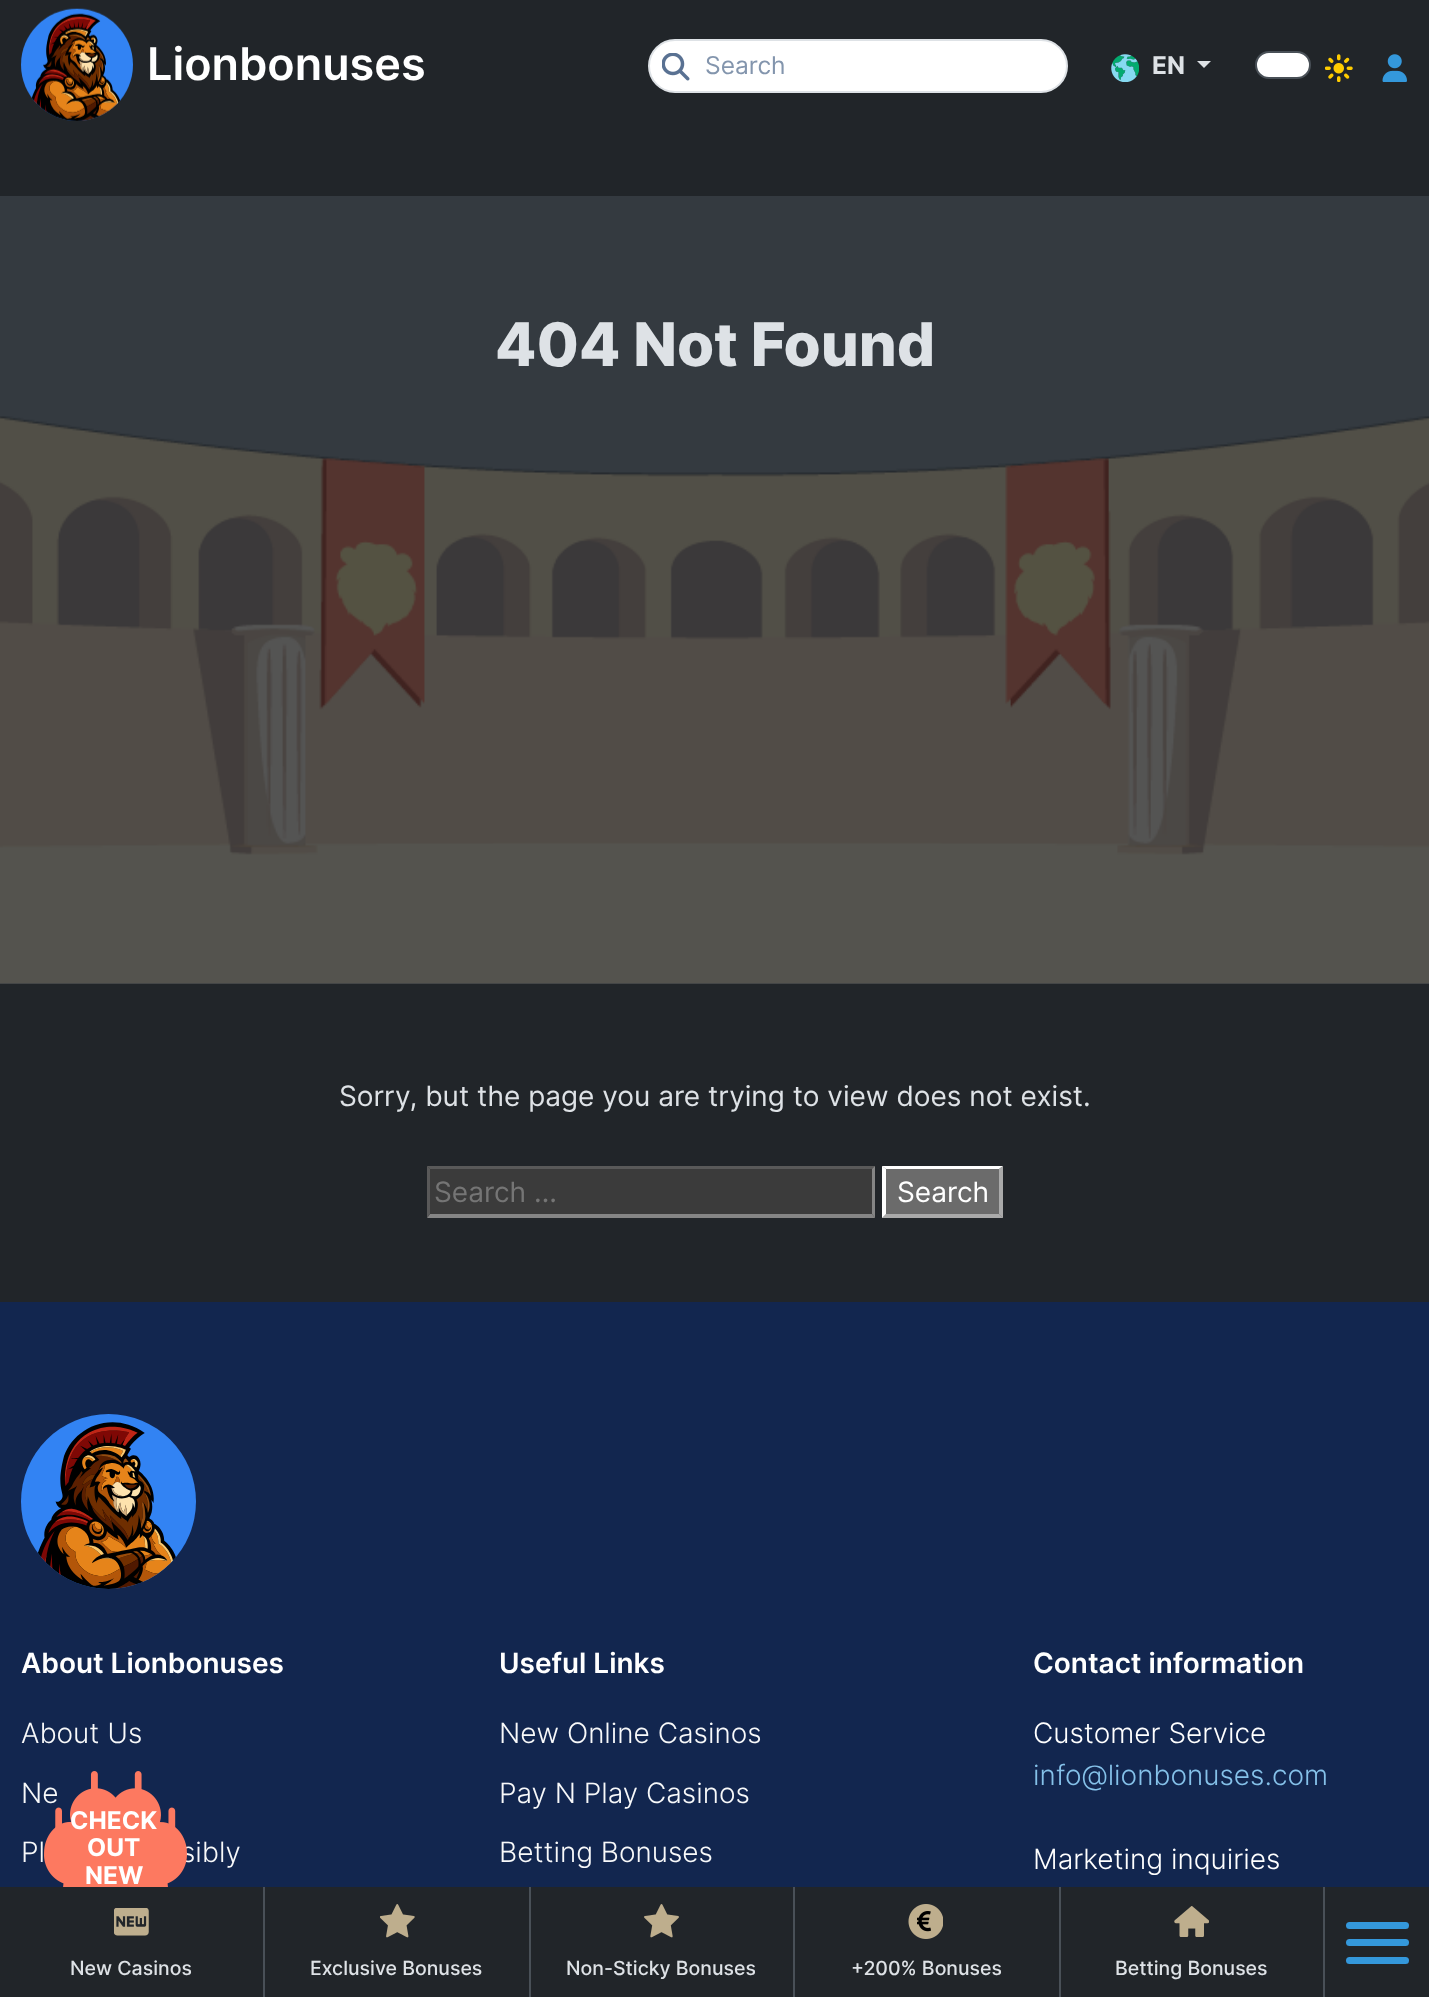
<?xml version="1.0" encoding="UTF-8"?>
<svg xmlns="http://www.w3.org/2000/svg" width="1429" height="1997">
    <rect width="100%" height="100%" fill="#212529"/>
    <image x="21" y="8" width="112" height="113" href="img_01.png"/>
    <text x="147" y="80" font-family="Inter" font-size="45" font-weight="600" fill="#FFFFFF">Lionbonuses</text>
    <rect x="649" y="40" width="418" height="52" rx="26" fill="#FFFFFF" stroke="#DEE2E6" stroke-width="2"/>
    <image x="662" y="53" width="28" height="28" href="img_02.png"/>
    <text x="705" y="74" font-family="Inter" font-size="24.5" fill="#8395AD">Search</text>
    <image x="1111" y="54" width="28" height="28" href="img_03.png"/>
    <text x="1152" y="74" font-family="Inter" font-size="24.5" font-weight="700" fill="#DEE2E6">EN</text>
    <path d="M 1197 61 H 1211 L 1204 68 Z" fill="#DEE2E6"/>
    <rect x="1256" y="52" width="54" height="26" rx="13" fill="#FFFFFF" stroke="#495057" stroke-width="2"/>
    <image x="1325" y="54" width="28" height="28" href="img_04.png"/>
    <image x="1382" y="54" width="25" height="28" href="img_05.png"/>
    <rect x="0" y="196" width="1429" height="788" fill="#343A40"/>
    <image x="0" y="416" width="1429" height="568" href="img_06.png"/>
    <text x="495" y="366" font-family="Inter" font-size="60" font-weight="800" fill="#DEE2E6">404 Not Found</text>
    <text x="339" y="1106" font-family="Inter" font-size="28" fill="#DEE2E6">Sorry, but the page you are trying to view does not exist.</text>
    <rect x="427" y="1166" width="448" height="52" fill="#3B3B3B"/>
    <path d="M 427 1166 H 875 L 872 1169 H 430 Z" fill="#595959"/>
    <path d="M 875 1166 V 1218 L 872 1214 V 1169 Z" fill="#858585"/>
    <path d="M 875 1218 H 427 L 430 1214 H 872 Z" fill="#858585"/>
    <path d="M 427 1218 V 1166 L 430 1169 V 1214 Z" fill="#595959"/>
    <text x="434" y="1202" font-family="Inter" font-size="28" fill="#757575">Search …</text>
    <rect x="882" y="1166" width="121" height="52" fill="#6B6B6B"/>
    <path d="M 882 1166 H 1003 L 999 1169 H 886 Z" fill="#FFFFFF"/>
    <path d="M 1003 1166 V 1218 L 999 1214 V 1169 Z" fill="#AAAAAA"/>
    <path d="M 1003 1218 H 882 L 886 1214 H 999 Z" fill="#AAAAAA"/>
    <path d="M 882 1218 V 1166 L 886 1169 V 1214 Z" fill="#FFFFFF"/>
    <text x="897" y="1202" font-family="Inter" font-size="28" fill="#FFFFFF">Search</text>
    <rect x="0" y="1302" width="1429" height="585" fill="#12264F"/>
    <image x="21" y="1414" width="175" height="175" href="img_07.png"/>
    <text x="21" y="1673" font-family="Inter" font-size="28" font-weight="600" fill="#FFFFFF">About Lionbonuses</text>
    <text x="21" y="1743" font-family="Inter" font-size="28" font-weight="300" fill="#F8F9FA">About Us</text>
    <text x="21" y="1803" font-family="Inter" font-size="28" font-weight="300" fill="#F8F9FA">Ne</text>
    <text x="21" y="1862" font-family="Inter" font-size="28" font-weight="300" fill="#F8F9FA">Pl</text>
    <text x="181" y="1862" font-family="Inter" font-size="28" font-weight="300" fill="#F8F9FA">sibly</text>
    <text x="499" y="1673" font-family="Inter" font-size="28" font-weight="600" fill="#FFFFFF">Useful Links</text>
    <text x="499" y="1743" font-family="Inter" font-size="28" font-weight="300" fill="#F8F9FA">New Online Casinos</text>
    <text x="499" y="1803" font-family="Inter" font-size="28" font-weight="300" fill="#F8F9FA">Pay N Play Casinos</text>
    <text x="499" y="1862" font-family="Inter" font-size="28" font-weight="300" fill="#F8F9FA">Betting Bonuses</text>
    <text x="1033" y="1673" font-family="Inter" font-size="28" font-weight="600" fill="#FFFFFF">Contact information</text>
    <text x="1033" y="1743" font-family="Inter" font-size="28" font-weight="300" fill="#FFFFFF">Customer Service</text>
    <text x="1033" y="1785" font-family="Inter" font-size="28" font-weight="300" fill="#85C1E9">info@lionbonuses.com</text>
    <text x="1033" y="1869" font-family="Inter" font-size="28" font-weight="300" fill="#FFFFFF">Marketing inquiries</text>
    <image x="44" y="1771" width="143" height="116" href="img_08.png"/>
    <text x="70" y="1829" font-family="Inter" font-size="24.5" font-weight="700" fill="#FFFFFF">CHECK</text>
    <text x="87" y="1856" font-family="Inter" font-size="24.5" font-weight="700" fill="#FFFFFF">OUT</text>
    <text x="85" y="1884" font-family="Inter" font-size="24.5" font-weight="700" fill="#FFFFFF">NEW</text>
    <rect x="1346" y="1922" width="63" height="7" rx="3.5" fill="#3498DB"/>
    <rect x="1346" y="1939" width="63" height="7" rx="3.5" fill="#3498DB"/>
    <rect x="1346" y="1957" width="63" height="7" rx="3.5" fill="#3498DB"/>
    <rect x="263" y="1887" width="2" height="110" fill="#495057"/>
    <image x="114" y="1908" width="35" height="28" href="img_09.png"/>
    <text x="70" y="1975" font-family="Inter" font-size="19.5" font-weight="500" fill="#DEE2E6">New Casinos</text>
    <rect x="529" y="1887" width="2" height="110" fill="#495057"/>
    <image x="380" y="1904" width="35" height="34" href="img_10.png"/>
    <text x="310" y="1975" font-family="Inter" font-size="19.5" font-weight="500" fill="#DEE2E6">Exclusive Bonuses</text>
    <rect x="793" y="1887" width="2" height="110" fill="#495057"/>
    <image x="644" y="1904" width="35" height="34" href="img_11.png"/>
    <text x="566" y="1975" font-family="Inter" font-size="19.5" font-weight="500" fill="#DEE2E6">Non-Sticky Bonuses</text>
    <rect x="1059" y="1887" width="2" height="110" fill="#495057"/>
    <image x="908" y="1904" width="35" height="35" href="img_12.png"/>
    <text x="851" y="1975" font-family="Inter" font-size="19.5" font-weight="500" fill="#DEE2E6">+200% Bonuses</text>
    <rect x="1323" y="1887" width="2" height="110" fill="#495057"/>
    <image x="1174" y="1906" width="35" height="31" href="img_13.png"/>
    <text x="1115" y="1975" font-family="Inter" font-size="19.5" font-weight="500" fill="#DEE2E6">Betting Bonuses</text>
</svg>
